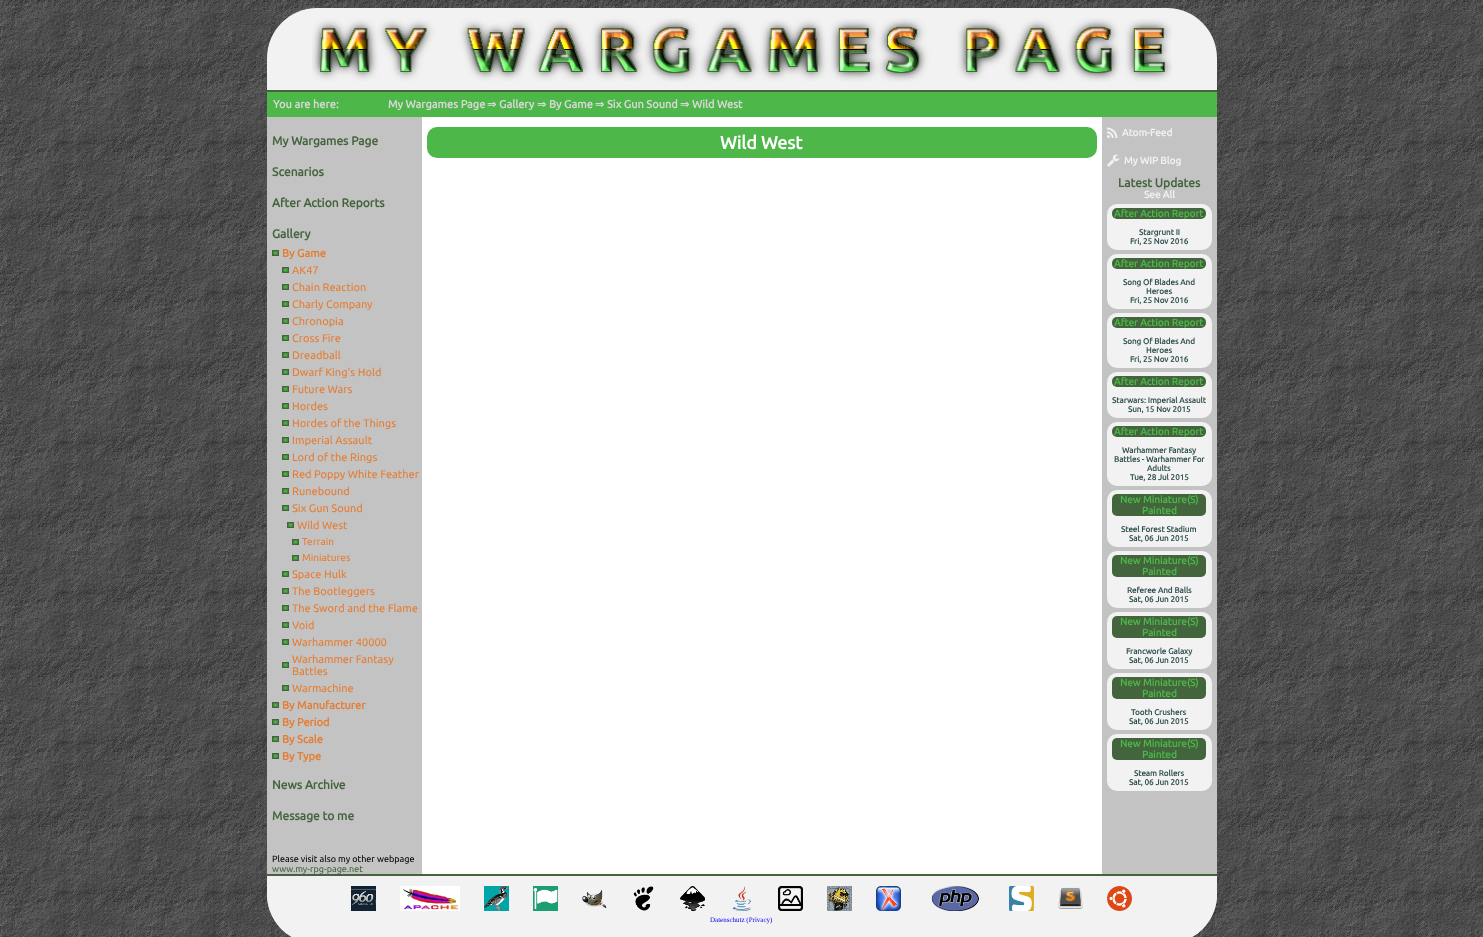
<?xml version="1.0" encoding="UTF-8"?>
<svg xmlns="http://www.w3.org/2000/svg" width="1483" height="937">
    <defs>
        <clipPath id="clip1"><path d="M 267 876 H 1217 V 894 C 1217 921.5 1194.5 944 1167 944 H 317 C 289.5 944 267 921.5 267 894 Z"/></clipPath>
    </defs>
    <rect width="100%" height="100%" fill="#FFFFFF"/>
    <image x="0" y="0" width="1483" height="937" href="img_01.png"/>
    <path d="M 317 8 H 1167 C 1194.5 8 1217 30.5 1217 58 V 92 H 267 V 58 C 267 30.5 289.5 8 317 8 Z" fill="#F2F2F2"/>
    <rect x="267" y="90" width="950" height="2" fill="#44643D"/>
    <image x="312" y="18" width="860" height="64" href="img_02.png"/>
    <rect x="267" y="92" width="950" height="25" fill="#4DB749"/>
    <text x="273" y="108" font-family="Ubuntu" font-size="11" font-weight="700" fill="#D7D7D7">You are here:</text>
    <text x="388" y="108" font-family="Ubuntu" font-size="11" font-weight="700" fill="#D7D7D7">My Wargames Page</text>
    <text x="487" y="108" font-family="DejaVu Sans" font-size="11" font-weight="700" fill="#D7D7D7">⇒</text>
    <text x="499" y="108" font-family="Ubuntu" font-size="11" font-weight="700" fill="#D7D7D7">Gallery</text>
    <text x="537" y="108" font-family="DejaVu Sans" font-size="11" font-weight="700" fill="#D7D7D7">⇒</text>
    <text x="549" y="108" font-family="Ubuntu" font-size="11" font-weight="700" fill="#D7D7D7">By Game</text>
    <text x="595" y="108" font-family="DejaVu Sans" font-size="11" font-weight="700" fill="#D7D7D7">⇒</text>
    <text x="607" y="108" font-family="Ubuntu" font-size="11" font-weight="700" fill="#D7D7D7">Six Gun Sound</text>
    <text x="680" y="108" font-family="DejaVu Sans" font-size="11" font-weight="700" fill="#D7D7D7">⇒</text>
    <text x="692" y="108" font-family="Ubuntu" font-size="11" font-weight="700" fill="#D7D7D7">Wild West</text>
    <rect x="422" y="117" width="680" height="757" fill="#FFFFFF"/>
    <image x="267" y="117" width="950" height="757" href="img_03.png"/>
    <text x="272" y="145" font-family="Ubuntu" font-size="12" font-weight="700" fill="#44643D">My Wargames Page</text>
    <text x="272" y="176" font-family="Ubuntu" font-size="12" font-weight="700" fill="#44643D">Scenarios</text>
    <text x="272" y="207" font-family="Ubuntu" font-size="12" font-weight="700" fill="#44643D">After Action Reports</text>
    <text x="272" y="238" font-family="Ubuntu" font-size="12" font-weight="700" fill="#44643D">Gallery</text>
    <image x="272" y="250" width="7" height="6" href="img_04.png"/>
    <text x="282" y="257" font-family="Ubuntu" font-size="11" font-weight="700" fill="#E67D32">By Game</text>
    <image x="282" y="267" width="7" height="6" href="img_04.png"/>
    <text x="292" y="274" font-family="Ubuntu" font-size="11" fill="#E67D32">AK47</text>
    <image x="282" y="284" width="7" height="6" href="img_04.png"/>
    <text x="292" y="291" font-family="Ubuntu" font-size="11" fill="#E67D32">Chain Reaction</text>
    <image x="282" y="301" width="7" height="6" href="img_04.png"/>
    <text x="292" y="308" font-family="Ubuntu" font-size="11" fill="#E67D32">Charly Company</text>
    <image x="282" y="318" width="7" height="6" href="img_04.png"/>
    <text x="292" y="325" font-family="Ubuntu" font-size="11" fill="#E67D32">Chronopia</text>
    <image x="282" y="335" width="7" height="6" href="img_04.png"/>
    <text x="292" y="342" font-family="Ubuntu" font-size="11" fill="#E67D32">Cross Fire</text>
    <image x="282" y="352" width="7" height="6" href="img_04.png"/>
    <text x="292" y="359" font-family="Ubuntu" font-size="11" fill="#E67D32">Dreadball</text>
    <image x="282" y="369" width="7" height="6" href="img_04.png"/>
    <text x="292" y="376" font-family="Ubuntu" font-size="11" fill="#E67D32">Dwarf King's Hold</text>
    <image x="282" y="386" width="7" height="6" href="img_04.png"/>
    <text x="292" y="393" font-family="Ubuntu" font-size="11" fill="#E67D32">Future Wars</text>
    <image x="282" y="403" width="7" height="6" href="img_04.png"/>
    <text x="292" y="410" font-family="Ubuntu" font-size="11" fill="#E67D32">Hordes</text>
    <image x="282" y="420" width="7" height="6" href="img_04.png"/>
    <text x="292" y="427" font-family="Ubuntu" font-size="11" fill="#E67D32">Hordes of the Things</text>
    <image x="282" y="437" width="7" height="6" href="img_04.png"/>
    <text x="292" y="444" font-family="Ubuntu" font-size="11" fill="#E67D32">Imperial Assault</text>
    <image x="282" y="454" width="7" height="6" href="img_04.png"/>
    <text x="292" y="461" font-family="Ubuntu" font-size="11" fill="#E67D32">Lord of the Rings</text>
    <image x="282" y="471" width="7" height="6" href="img_04.png"/>
    <text x="292" y="478" font-family="Ubuntu" font-size="11" fill="#E67D32">Red Poppy White Feather</text>
    <image x="282" y="488" width="7" height="6" href="img_04.png"/>
    <text x="292" y="495" font-family="Ubuntu" font-size="11" fill="#E67D32">Runebound</text>
    <image x="282" y="505" width="7" height="6" href="img_04.png"/>
    <text x="292" y="512" font-family="Ubuntu" font-size="11" fill="#E67D32">Six Gun Sound</text>
    <image x="287" y="522" width="7" height="6" href="img_04.png"/>
    <text x="297" y="529" font-family="Ubuntu" font-size="11" fill="#E67D32">Wild West</text>
    <image x="292" y="539" width="7" height="6" href="img_04.png"/>
    <text x="302" y="545" font-family="Ubuntu" font-size="10" fill="#E67D32">Terrain</text>
    <image x="292" y="555" width="7" height="6" href="img_04.png"/>
    <text x="302" y="561" font-family="Ubuntu" font-size="10" fill="#E67D32">Miniatures</text>
    <image x="282" y="571" width="7" height="6" href="img_04.png"/>
    <text x="292" y="578" font-family="Ubuntu" font-size="11" fill="#E67D32">Space Hulk</text>
    <image x="282" y="588" width="7" height="6" href="img_04.png"/>
    <text x="292" y="595" font-family="Ubuntu" font-size="11" fill="#E67D32">The Bootleggers</text>
    <image x="282" y="605" width="7" height="6" href="img_04.png"/>
    <text x="292" y="612" font-family="Ubuntu" font-size="11" fill="#E67D32">The Sword and the Flame</text>
    <image x="282" y="622" width="7" height="6" href="img_04.png"/>
    <text x="292" y="629" font-family="Ubuntu" font-size="11" fill="#E67D32">Void</text>
    <image x="282" y="639" width="7" height="6" href="img_04.png"/>
    <text x="292" y="646" font-family="Ubuntu" font-size="11" fill="#E67D32">Warhammer 40000</text>
    <image x="282" y="662" width="7" height="6" href="img_04.png"/>
    <text font-family="Ubuntu" font-size="11" fill="#E67D32">
        <tspan x="292" y="663">Warhammer Fantasy</tspan>
        <tspan x="292" y="675">Battles</tspan>
    </text>
    <image x="282" y="685" width="7" height="6" href="img_04.png"/>
    <text x="292" y="692" font-family="Ubuntu" font-size="11" fill="#E67D32">Warmachine</text>
    <image x="272" y="702" width="7" height="6" href="img_04.png"/>
    <text x="282" y="709" font-family="Ubuntu" font-size="11" font-weight="700" fill="#E67D32">By Manufacturer</text>
    <image x="272" y="719" width="7" height="6" href="img_04.png"/>
    <text x="282" y="726" font-family="Ubuntu" font-size="11" font-weight="700" fill="#E67D32">By Period</text>
    <image x="272" y="736" width="7" height="6" href="img_04.png"/>
    <text x="282" y="743" font-family="Ubuntu" font-size="11" font-weight="700" fill="#E67D32">By Scale</text>
    <image x="272" y="753" width="7" height="6" href="img_04.png"/>
    <text x="282" y="760" font-family="Ubuntu" font-size="11" font-weight="700" fill="#E67D32">By Type</text>
    <text x="272" y="789" font-family="Ubuntu" font-size="12" font-weight="700" fill="#44643D">News Archive</text>
    <text x="272" y="820" font-family="Ubuntu" font-size="12" font-weight="700" fill="#44643D">Message to me</text>
    <text x="272" y="862" font-family="Ubuntu" font-size="9" fill="#000000">Please visit also my other webpage</text>
    <text x="272" y="872" font-family="Ubuntu" font-size="9" fill="#44643D">www.my-rpg-page.net</text>
    <rect x="427" y="127" width="670" height="31" rx="10" fill="#4DB749"/>
    <text x="720" y="149" font-family="Ubuntu" font-size="18" font-weight="700" fill="#FFFFFF">Wild West</text>
    <image x="1107" y="127" width="11" height="11" href="img_05.png"/>
    <text x="1122" y="136" font-family="Ubuntu" font-size="10" font-weight="700" fill="#F2F2F2">Atom-Feed</text>
    <image x="1107" y="154" width="13" height="13" href="img_06.png"/>
    <text x="1124" y="164" font-family="Ubuntu" font-size="10" font-weight="700" fill="#F2F2F2">My WIP Blog</text>
    <text x="1118" y="187" font-family="Ubuntu" font-size="12" font-weight="700" fill="#44643D">Latest Updates</text>
    <text x="1144" y="198" font-family="Ubuntu" font-size="10" font-weight="700" fill="#F2F2F2">See All</text>
    <rect x="1107" y="204" width="105" height="46" rx="10" fill="#F2F2F2"/>
    <rect x="1112" y="208" width="94" height="11" rx="5" fill="#44643D"/>
    <text x="1114" y="217" font-family="Ubuntu" font-size="10" font-weight="700" fill="#4DB749">After Action Report</text>
    <text x="1139" y="235" font-family="Ubuntu" font-size="8" font-weight="700" fill="#2F4F4F">Stargrunt II</text>
    <text x="1130" y="244" font-family="Ubuntu" font-size="8" font-weight="700" fill="#2F4F4F">Fri, 25 Nov 2016</text>
    <rect x="1107" y="254" width="105" height="55" rx="10" fill="#F2F2F2"/>
    <rect x="1112" y="258" width="94" height="11" rx="5" fill="#44643D"/>
    <text x="1114" y="267" font-family="Ubuntu" font-size="10" font-weight="700" fill="#4DB749">After Action Report</text>
    <text x="1123" y="285" font-family="Ubuntu" font-size="8" font-weight="700" fill="#2F4F4F">Song Of Blades And</text>
    <text x="1146" y="294" font-family="Ubuntu" font-size="8" font-weight="700" fill="#2F4F4F">Heroes</text>
    <text x="1130" y="303" font-family="Ubuntu" font-size="8" font-weight="700" fill="#2F4F4F">Fri, 25 Nov 2016</text>
    <rect x="1107" y="313" width="105" height="55" rx="10" fill="#F2F2F2"/>
    <rect x="1112" y="317" width="94" height="11" rx="5" fill="#44643D"/>
    <text x="1114" y="326" font-family="Ubuntu" font-size="10" font-weight="700" fill="#4DB749">After Action Report</text>
    <text x="1123" y="344" font-family="Ubuntu" font-size="8" font-weight="700" fill="#2F4F4F">Song Of Blades And</text>
    <text x="1146" y="353" font-family="Ubuntu" font-size="8" font-weight="700" fill="#2F4F4F">Heroes</text>
    <text x="1130" y="362" font-family="Ubuntu" font-size="8" font-weight="700" fill="#2F4F4F">Fri, 25 Nov 2016</text>
    <rect x="1107" y="372" width="105" height="46" rx="10" fill="#F2F2F2"/>
    <rect x="1112" y="376" width="94" height="11" rx="5" fill="#44643D"/>
    <text x="1114" y="385" font-family="Ubuntu" font-size="10" font-weight="700" fill="#4DB749">After Action Report</text>
    <text x="1112" y="403" font-family="Ubuntu" font-size="8" font-weight="700" fill="#2F4F4F">Starwars: Imperial Assault</text>
    <text x="1128" y="412" font-family="Ubuntu" font-size="8" font-weight="700" fill="#2F4F4F">Sun, 15 Nov 2015</text>
    <rect x="1107" y="422" width="105" height="64" rx="10" fill="#F2F2F2"/>
    <rect x="1112" y="426" width="94" height="11" rx="5" fill="#44643D"/>
    <text x="1114" y="435" font-family="Ubuntu" font-size="10" font-weight="700" fill="#4DB749">After Action Report</text>
    <text x="1122" y="453" font-family="Ubuntu" font-size="8" font-weight="700" fill="#2F4F4F">Warhammer Fantasy</text>
    <text x="1114" y="462" font-family="Ubuntu" font-size="8" font-weight="700" fill="#2F4F4F">Battles - Warhammer For</text>
    <text x="1147" y="471" font-family="Ubuntu" font-size="8" font-weight="700" fill="#2F4F4F">Adults</text>
    <text x="1130" y="480" font-family="Ubuntu" font-size="8" font-weight="700" fill="#2F4F4F">Tue, 28 Jul 2015</text>
    <rect x="1107" y="490" width="105" height="57" rx="10" fill="#F2F2F2"/>
    <rect x="1112" y="494" width="94" height="22" rx="5" fill="#44643D"/>
    <text x="1120" y="503" font-family="Ubuntu" font-size="10" font-weight="700" fill="#4DB749">New Miniature(S)</text>
    <text x="1142" y="514" font-family="Ubuntu" font-size="10" font-weight="700" fill="#4DB749">Painted</text>
    <text x="1121" y="532" font-family="Ubuntu" font-size="8" font-weight="700" fill="#2F4F4F">Steel Forest Stadium</text>
    <text x="1129" y="541" font-family="Ubuntu" font-size="8" font-weight="700" fill="#2F4F4F">Sat, 06 Jun 2015</text>
    <rect x="1107" y="551" width="105" height="57" rx="10" fill="#F2F2F2"/>
    <rect x="1112" y="555" width="94" height="22" rx="5" fill="#44643D"/>
    <text x="1120" y="564" font-family="Ubuntu" font-size="10" font-weight="700" fill="#4DB749">New Miniature(S)</text>
    <text x="1142" y="575" font-family="Ubuntu" font-size="10" font-weight="700" fill="#4DB749">Painted</text>
    <text x="1127" y="593" font-family="Ubuntu" font-size="8" font-weight="700" fill="#2F4F4F">Referee And Balls</text>
    <text x="1129" y="602" font-family="Ubuntu" font-size="8" font-weight="700" fill="#2F4F4F">Sat, 06 Jun 2015</text>
    <rect x="1107" y="612" width="105" height="57" rx="10" fill="#F2F2F2"/>
    <rect x="1112" y="616" width="94" height="22" rx="5" fill="#44643D"/>
    <text x="1120" y="625" font-family="Ubuntu" font-size="10" font-weight="700" fill="#4DB749">New Miniature(S)</text>
    <text x="1142" y="636" font-family="Ubuntu" font-size="10" font-weight="700" fill="#4DB749">Painted</text>
    <text x="1126" y="654" font-family="Ubuntu" font-size="8" font-weight="700" fill="#2F4F4F">Francworle Galaxy</text>
    <text x="1129" y="663" font-family="Ubuntu" font-size="8" font-weight="700" fill="#2F4F4F">Sat, 06 Jun 2015</text>
    <rect x="1107" y="673" width="105" height="57" rx="10" fill="#F2F2F2"/>
    <rect x="1112" y="677" width="94" height="22" rx="5" fill="#44643D"/>
    <text x="1120" y="686" font-family="Ubuntu" font-size="10" font-weight="700" fill="#4DB749">New Miniature(S)</text>
    <text x="1142" y="697" font-family="Ubuntu" font-size="10" font-weight="700" fill="#4DB749">Painted</text>
    <text x="1131" y="715" font-family="Ubuntu" font-size="8" font-weight="700" fill="#2F4F4F">Tooth Crushers</text>
    <text x="1129" y="724" font-family="Ubuntu" font-size="8" font-weight="700" fill="#2F4F4F">Sat, 06 Jun 2015</text>
    <rect x="1107" y="734" width="105" height="57" rx="10" fill="#F2F2F2"/>
    <rect x="1112" y="738" width="94" height="22" rx="5" fill="#44643D"/>
    <text x="1120" y="747" font-family="Ubuntu" font-size="10" font-weight="700" fill="#4DB749">New Miniature(S)</text>
    <text x="1142" y="758" font-family="Ubuntu" font-size="10" font-weight="700" fill="#4DB749">Painted</text>
    <text x="1134" y="776" font-family="Ubuntu" font-size="8" font-weight="700" fill="#2F4F4F">Steam Rollers</text>
    <text x="1129" y="785" font-family="Ubuntu" font-size="8" font-weight="700" fill="#2F4F4F">Sat, 06 Jun 2015</text>
    <rect x="267" y="874" width="950" height="2" fill="#44643D"/>
    <path d="M 267 876 H 1217 V 894 C 1217 921.5 1194.5 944 1167 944 H 317 C 289.5 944 267 921.5 267 894 Z" fill="#F2F2F2"/>
    <g clip-path="url(#clip1)">
        <rect x="267" y="886" width="950" height="48" fill="#F2F2F2"/>
    </g>
    <image x="351" y="886" width="25" height="25" href="img_07.png"/>
    <image x="400" y="886" width="60" height="25" href="img_08.png"/>
    <image x="484" y="886" width="25" height="25" href="img_09.png"/>
    <image x="533" y="886" width="25" height="25" href="img_10.png"/>
    <image x="582" y="890" width="25" height="18" href="img_11.png"/>
    <image x="633" y="886" width="21" height="25" href="img_12.png"/>
    <image x="680" y="886" width="25" height="25" href="img_13.png"/>
    <image x="732" y="886" width="19" height="25" href="img_14.png"/>
    <image x="778" y="886" width="25" height="25" href="img_15.png"/>
    <image x="827" y="886" width="25" height="25" href="img_16.png"/>
    <image x="876" y="886" width="25" height="25" href="img_17.png"/>
    <image x="931" y="886" width="48" height="25" href="img_18.png"/>
    <image x="1009" y="886" width="25" height="25" href="img_19.png"/>
    <image x="1058" y="887" width="25" height="22" href="img_20.png"/>
    <image x="1107" y="886" width="25" height="25" href="img_21.png"/>
    <text x="710" y="922" font-family="Liberation Serif" font-size="7" fill="#0000EE">Datenschutz (Privacy)</text>
</svg>
